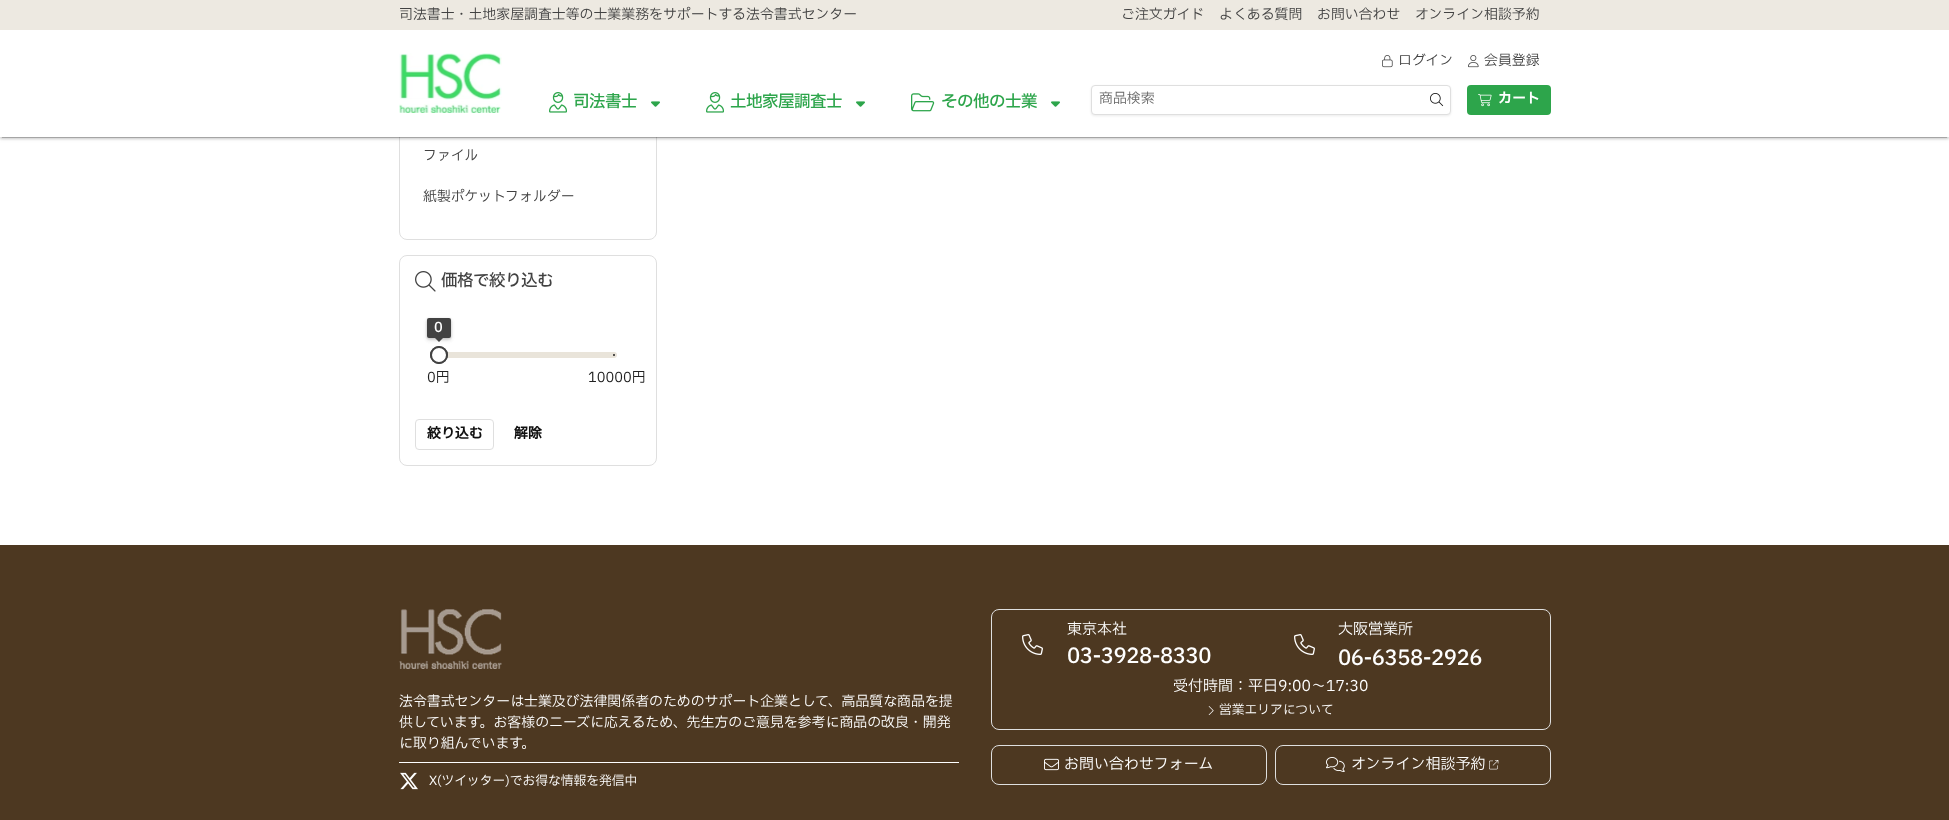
<?xml version="1.0" encoding="UTF-8"?>
<svg xmlns="http://www.w3.org/2000/svg" width="1949" height="820">
    <defs>
        <filter id="blur1" x="-50%" y="-200%" width="200%" height="500%"><feGaussianBlur stdDeviation="2.5"/></filter>
        <filter id="blur2" x="-50%" y="-200%" width="200%" height="500%"><feGaussianBlur stdDeviation="1"/></filter>
        <filter id="blur3" x="-50%" y="-200%" width="200%" height="500%"><feGaussianBlur stdDeviation="0.5"/></filter>
        <filter id="blur4" x="-50%" y="-200%" width="200%" height="500%"><feGaussianBlur stdDeviation="2"/></filter>
    </defs>
    <rect width="100%" height="100%" fill="#FFFFFF"/>
    <rect x="399.5" y="-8.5" width="257" height="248" rx="7.5" fill="none" stroke="#DFDFDF"/>
    <rect x="0" y="1" width="1949" height="137" fill="#000000" fill-opacity="0.12" filter="url(#blur1)"/>
    <rect x="0" y="2" width="1949" height="137" fill="#000000" fill-opacity="0.14" filter="url(#blur2)"/>
    <rect x="2" y="5" width="1945" height="133" fill="#000000" fill-opacity="0.2" filter="url(#blur3)"/>
    <rect x="0" y="30" width="1949" height="107" fill="#FFFFFF"/>
    <rect x="0" y="0" width="1949" height="30" fill="#EDE9E1"/>
    <text x="399" y="19" font-family="IBM Plex Sans JP" font-size="13.9" fill="#424242">司法書士・土地家屋調査士等の士業業務をサポートする法令書式センター</text>
    <text x="1121" y="19" font-family="IBM Plex Sans JP" font-size="13.9" fill="#424242">ご注文ガイド</text>
    <text x="1219" y="19" font-family="IBM Plex Sans JP" font-size="13.9" fill="#424242">よくある質問</text>
    <text x="1317" y="19" font-family="IBM Plex Sans JP" font-size="13.9" fill="#424242">お問い合わせ</text>
    <text x="1415" y="19" font-family="IBM Plex Sans JP" font-size="13.9" fill="#424242">オンライン相談予約</text>
    <image x="399" y="53" width="103" height="60" href="img_01.png"/>
    <image x="1382" y="55" width="11" height="13" href="img_02.png"/>
    <text x="1398" y="65" font-family="IBM Plex Sans JP" font-size="13.9" fill="#424242">ログイン</text>
    <image x="1468" y="55" width="11" height="13" href="img_03.png"/>
    <text x="1484" y="65" font-family="IBM Plex Sans JP" font-size="13.9" fill="#424242">会員登録</text>
    <image x="549" y="92" width="18" height="21" href="img_04.png"/>
    <text x="573" y="107" font-family="IBM Plex Sans JP" font-size="16.5" font-weight="500" letter-spacing="-0.5" fill="#2DA54B">司法書士</text>
    <image x="651" y="101" width="9" height="6" href="img_05.png"/>
    <image x="706" y="92" width="18" height="21" href="img_04.png"/>
    <text x="730" y="107" font-family="IBM Plex Sans JP" font-size="16.5" font-weight="500" letter-spacing="-0.5" fill="#2DA54B">土地家屋調査士</text>
    <image x="856" y="101" width="9" height="6" href="img_05.png"/>
    <image x="911" y="93" width="24" height="19" href="img_06.png"/>
    <text x="941" y="107" font-family="IBM Plex Sans JP" font-size="16.5" font-weight="500" letter-spacing="-0.5" fill="#2DA54B">その他の士業</text>
    <image x="1051" y="101" width="9" height="6" href="img_05.png"/>
    <rect x="1091" y="86" width="360" height="30" rx="4" fill="#151515" fill-opacity="0.08" filter="url(#blur2)"/>
    <rect x="1091.5" y="85.5" width="359" height="29" rx="3.5" fill="#FFFFFF" stroke="#DFDFDF"/>
    <text x="1099" y="103" font-family="IBM Plex Sans JP" font-size="13.9" fill="#676767">商品検索</text>
    <image x="1430" y="93" width="14" height="14" href="img_07.png"/>
    <rect x="1467" y="85" width="84" height="30" rx="4" fill="#2DA54B"/>
    <image x="1478" y="94" width="14" height="13" href="img_08.png"/>
    <text x="1498" y="103" font-family="IBM Plex Sans JP" font-size="13.9" font-weight="700" fill="#FFFFFF">カート</text>
    <text x="423" y="160" font-family="IBM Plex Sans JP" font-size="13.9" fill="#424242">ファイル</text>
    <text x="423" y="201" font-family="IBM Plex Sans JP" font-size="13.9" fill="#424242">紙製ポケットフォルダー</text>
    <rect x="399.5" y="255.5" width="257" height="210" rx="7.5" fill="none" stroke="#DFDFDF"/>
    <image x="415" y="271" width="21" height="21" href="img_09.png"/>
    <text x="441" y="286" font-family="IBM Plex Sans JP" font-size="16.5" font-weight="500" letter-spacing="-0.5" fill="#424242">価格で絞り込む</text>
    <rect x="439" y="352" width="178" height="6" rx="3" fill="#E9E4DA"/>
    <circle cx="439" cy="355" r="8" fill="none" stroke="#424242" stroke-width="2"/>
    <rect x="427" y="320" width="24" height="20" rx="2" fill="#151515" fill-opacity="0.08" filter="url(#blur4)"/>
    <rect x="427" y="319" width="24" height="20" rx="2" fill="#151515" fill-opacity="0.08" filter="url(#blur2)"/>
    <circle cx="439" cy="355" r="8" fill="#FFFFFF" stroke="#424242" stroke-width="2"/>
    <rect x="427" y="320" width="24" height="20" rx="2" fill="#151515" fill-opacity="0.08" filter="url(#blur4)"/>
    <rect x="427" y="319" width="24" height="20" rx="2" fill="#151515" fill-opacity="0.08" filter="url(#blur2)"/>
    <rect x="427" y="318" width="24" height="20" rx="2" fill="#424242"/>
    <text x="434" y="332" font-family="IBM Plex Sans JP" font-size="13.9" font-weight="500" fill="#FFFFFF">0</text>
    <path d="M 435 338 H 443 L 439 342 Z" fill="#424242"/>
    <circle cx="614" cy="355" r="1" fill="#212121"/>
    <text x="427" y="382" font-family="IBM Plex Sans JP" font-size="13.9" fill="#212121">0円</text>
    <text x="588" y="382" font-family="IBM Plex Sans JP" font-size="13.9" fill="#212121">10000円</text>
    <rect x="415.5" y="419.5" width="78" height="30" rx="3.5" fill="none" stroke="#DFDFDF"/>
    <text x="427" y="438" font-family="IBM Plex Sans JP" font-size="13.9" font-weight="700" fill="#111111">絞り込む</text>
    <text x="514" y="438" font-family="IBM Plex Sans JP" font-size="13.9" font-weight="700" fill="#111111">解除</text>
    <rect x="0" y="545" width="1949" height="275" fill="#4D3821"/>
    <image x="399" y="609" width="103" height="60" href="img_10.png"/>
    <text font-family="IBM Plex Sans JP" font-size="13.9" fill="#FFFFFF">
        <tspan x="399" y="706">法令書式センターは士業及び法律関係者のためのサポート企業として、高品質な商品を提</tspan>
        <tspan x="399" y="727">供しています。お客様のニーズに応えるため、先生方のご意見を参考に商品の改良・開発</tspan>
        <tspan x="399" y="748">に取り組んでいます。</tspan>
    </text>
    <rect x="399" y="762" width="560" height="1" fill="#FFFFFF"/>
    <image x="400" y="772" width="18" height="18" href="img_11.png"/>
    <text x="429" y="785" font-family="IBM Plex Sans JP" font-size="12.75" fill="#FFFFFF">X(ツイッター)でお得な情報を発信中</text>
    <rect x="991.5" y="609.5" width="559" height="120" rx="7.5" fill="none" stroke="#DFDFDF"/>
    <image x="1022" y="634" width="21" height="21" href="img_12.png"/>
    <text x="1067" y="634" font-family="IBM Plex Sans JP" font-size="15" fill="#FFFFFF">東京本社</text>
    <text x="1067" y="663" font-family="IBM Plex Sans JP" font-size="21" font-weight="500" letter-spacing="-0.5" fill="#FFFFFF">03-3928-8330</text>
    <image x="1294" y="634" width="21" height="21" href="img_12.png"/>
    <text x="1338" y="634" font-family="IBM Plex Sans JP" font-size="15" fill="#FFFFFF">大阪営業所</text>
    <text x="1338" y="665" font-family="IBM Plex Sans JP" font-size="21" font-weight="500" letter-spacing="-0.5" fill="#FFFFFF">06-6358-2926</text>
    <text x="1173" y="691" font-family="IBM Plex Sans JP" font-size="15" fill="#FFFFFF">受付時間：平日9:00～17:30</text>
    <image x="1208" y="706" width="6" height="9" href="img_13.png"/>
    <text x="1219" y="714" font-family="IBM Plex Sans JP" font-size="12.75" fill="#FFFFFF">営業エリアについて</text>
    <rect x="991.5" y="745.5" width="275" height="39" rx="7.5" fill="none" stroke="#DFDFDF"/>
    <image x="1044" y="758" width="15" height="13" href="img_14.png"/>
    <text x="1064" y="769" font-family="IBM Plex Sans JP" font-size="15" fill="#FFFFFF">お問い合わせフォーム</text>
    <rect x="1275.5" y="745.5" width="275" height="39" rx="7.5" fill="none" stroke="#DFDFDF"/>
    <image x="1326" y="757" width="19" height="15" href="img_15.png"/>
    <text x="1351" y="769" font-family="IBM Plex Sans JP" font-size="15" fill="#FFFFFF">オンライン相談予約</text>
    <image x="1489" y="760" width="10" height="10" href="img_16.png"/>
</svg>
